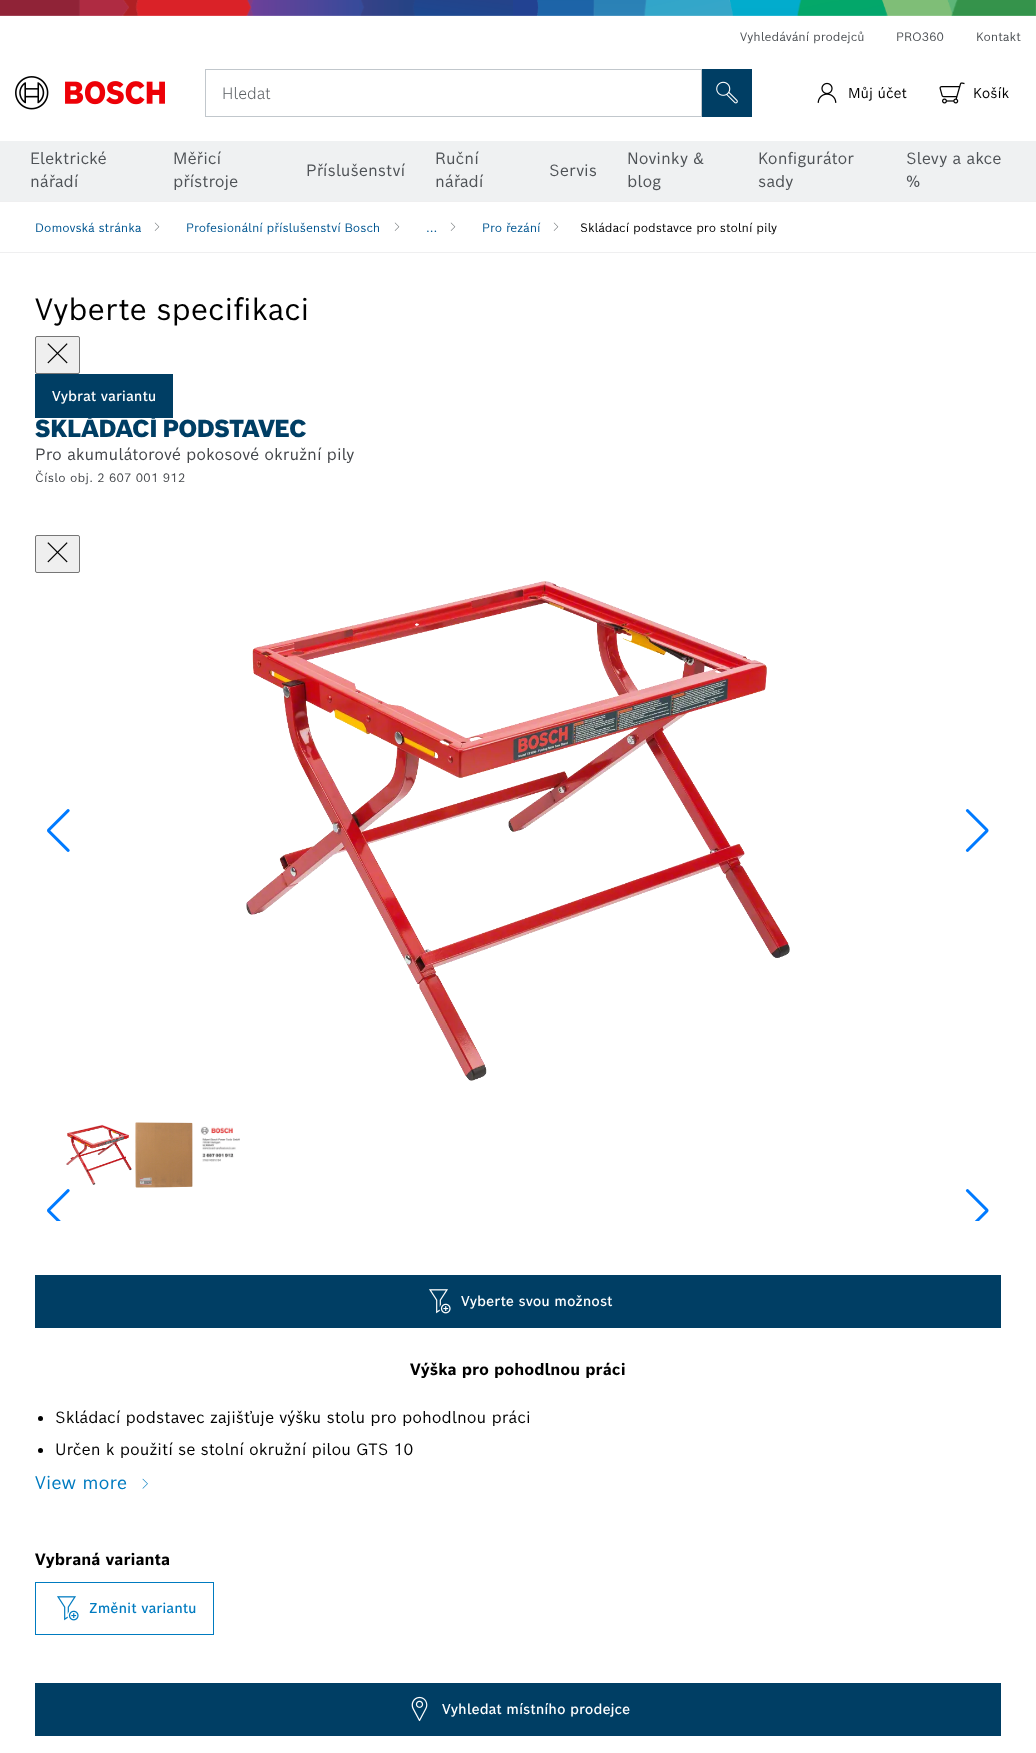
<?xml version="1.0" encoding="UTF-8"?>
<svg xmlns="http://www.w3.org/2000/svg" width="1036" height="1753">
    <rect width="100%" height="100%" fill="#FFFFFF"/>
    <image x="0" y="0" width="1036" height="16" href="img_01.png"/>
    <text x="740" y="41" font-family="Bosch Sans" font-size="12" fill="#4E5256">Vyhledávání prodejců</text>
    <text x="896" y="41" font-family="Bosch Sans" font-size="12" fill="#4E5256">PRO360</text>
    <text x="976" y="41" font-family="Bosch Sans" font-size="12" fill="#4E5256">Kontakt</text>
    <image x="15" y="76" width="150" height="34" href="img_02.png"/>
    <rect x="205.5" y="69.5" width="496" height="47" fill="none" stroke="#C1C7CC"/>
    <text x="222" y="99" font-family="Bosch Sans" font-size="16" font-weight="300" fill="#595E62">Hledat</text>
    <rect x="702" y="69" width="50" height="48" fill="#003E64"/>
    <image x="716" y="81" width="22" height="23" href="img_03.png"/>
    <image x="817" y="82" width="20" height="21" href="img_04.png"/>
    <text x="848" y="98" font-family="Bosch Sans" font-size="14" fill="#000000">Můj účet</text>
    <image x="939" y="82" width="26" height="22" href="img_05.png"/>
    <text x="973" y="98" font-family="Bosch Sans" font-size="14" fill="#000000">Košík</text>
    <rect x="0" y="141" width="1036" height="60" fill="#EFF1F2"/>
    <text font-family="Bosch Sans" font-size="16" fill="#4E5256">
        <tspan x="30" y="164">Elektrické</tspan>
        <tspan x="30" y="187">nářadí</tspan>
    </text>
    <text font-family="Bosch Sans" font-size="16" fill="#4E5256">
        <tspan x="173" y="164">Měřicí</tspan>
        <tspan x="173" y="187">přístroje</tspan>
    </text>
    <text x="306" y="176" font-family="Bosch Sans" font-size="16" fill="#4E5256">Příslušenství</text>
    <text font-family="Bosch Sans" font-size="16" fill="#4E5256">
        <tspan x="435" y="164">Ruční</tspan>
        <tspan x="435" y="187">nářadí</tspan>
    </text>
    <text x="549" y="176" font-family="Bosch Sans" font-size="16" fill="#4E5256">Servis</text>
    <text font-family="Bosch Sans" font-size="16" fill="#4E5256">
        <tspan x="627" y="164">Novinky &amp;</tspan>
        <tspan x="627" y="187">blog</tspan>
    </text>
    <text font-family="Bosch Sans" font-size="16" fill="#4E5256">
        <tspan x="758" y="164">Konfigurátor</tspan>
        <tspan x="758" y="187">sady</tspan>
    </text>
    <text font-family="Bosch Sans" font-size="16" fill="#4E5256">
        <tspan x="906" y="164">Slevy a akce</tspan>
        <tspan x="906" y="187">%</tspan>
    </text>
    <rect x="0" y="201" width="1036" height="1" fill="#EFEFF0"/>
    <rect x="0" y="252" width="1036" height="1" fill="#EFEFF0"/>
    <text x="35" y="232" font-family="Bosch Sans" font-size="12" fill="#005691">Domovská stránka</text>
    <image x="154" y="222" width="6" height="9" href="img_06.png"/>
    <text x="186" y="232" font-family="Bosch Sans" font-size="12" fill="#005691">Profesionální příslušenství Bosch</text>
    <image x="394" y="222" width="6" height="9" href="img_06.png"/>
    <image x="450" y="222" width="6" height="9" href="img_06.png"/>
    <text x="426" y="232" font-family="Bosch Sans" font-size="12" fill="#005691">...</text>
    <text x="482" y="232" font-family="Bosch Sans" font-size="12" fill="#005691">Pro řezání</text>
    <image x="553" y="222" width="6" height="9" href="img_06.png"/>
    <text x="580" y="232" font-family="Bosch Sans" font-size="12" fill="#000000">Skládací podstavce pro stolní pily</text>
    <text x="35" y="320" font-family="Bosch Sans" font-size="30" fill="#000000">Vyberte specifikaci</text>
    <rect x="35.5" y="336.5" width="44" height="37" rx="1.5" fill="#EFEFEF" stroke="#767676"/>
    <image x="47" y="343" width="21" height="21" href="img_07.png"/>
    <rect x="35" y="374" width="138" height="44" fill="#003E64"/>
    <text x="52" y="401" font-family="Bosch Sans" font-size="14" font-weight="500" fill="#FFFFFF">Vybrat variantu</text>
    <text x="35" y="437" font-family="Bosch Sans" font-size="24" font-weight="900" letter-spacing="-0.75" fill="#003E64">SKLÁDACÍ PODSTAVEC</text>
    <text x="35" y="460" font-family="Bosch Sans" font-size="16" fill="#43464A">Pro akumulátorové pokosové okružní pily</text>
    <text x="35" y="482" font-family="Bosch Sans" font-size="12" letter-spacing="0.25" fill="#43464A">Číslo obj. 2 607 001 912</text>
    <rect x="35.5" y="535.5" width="44" height="37" rx="1.5" fill="#EFEFEF" stroke="#767676"/>
    <image x="47" y="542" width="21" height="21" href="img_07.png"/>
    <image x="246" y="581" width="544" height="500" href="img_08.png"/>
    <image x="47" y="809" width="23" height="43" href="img_09.png"/>
    <image x="965" y="809" width="24" height="43" href="img_10.png"/>
    <image x="66" y="1124" width="66" height="61" href="img_11.png"/>
    <image x="135" y="1122" width="58" height="66" href="img_12.png"/>
    <image x="200" y="1126" width="40" height="36" href="img_13.png"/>
    <image x="47" y="1189" width="23" height="32" href="img_14.png"/>
    <image x="965" y="1189" width="24" height="32" href="img_15.png"/>
    <rect x="35" y="1275" width="966" height="53" fill="#003E64"/>
    <image x="429" y="1289" width="22" height="25" href="img_16.png"/>
    <text x="461" y="1306" font-family="Bosch Sans" font-size="14" font-weight="500" fill="#FFFFFF">Vyberte svou možnost</text>
    <text x="410" y="1375" font-family="Bosch Sans" font-size="16" font-weight="700" fill="#000000">Výška pro pohodlnou práci</text>
    <circle cx="40.5" cy="1418.5" r="2.5" fill="#000000"/>
    <text x="55" y="1423" font-family="Bosch Sans" font-size="16" fill="#000000">Skládací podstavec zajišťuje výšku stolu pro pohodlnou práci</text>
    <circle cx="40.5" cy="1450.5" r="2.5" fill="#000000"/>
    <text x="55" y="1455" font-family="Bosch Sans" font-size="16" fill="#000000">Určen k použití se stolní okružní pilou GTS 10</text>
    <text x="35" y="1489" font-family="Bosch Sans" font-size="18" fill="#007BC0">View more</text>
    <image x="142" y="1478" width="6" height="11" href="img_17.png"/>
    <text x="35" y="1565" font-family="Bosch Sans" font-size="16" font-weight="700" fill="#000000">Vybraná varianta</text>
    <rect x="35.5" y="1582.5" width="178" height="52" fill="none" stroke="#007BC0"/>
    <image x="57" y="1596" width="22" height="25" href="img_18.png"/>
    <text x="89" y="1613" font-family="Bosch Sans" font-size="14" font-weight="500" fill="#007BC0">Změnit variantu</text>
    <rect x="35" y="1683" width="966" height="53" fill="#003E64"/>
    <image x="411" y="1696" width="17" height="26" href="img_19.png"/>
    <text x="442" y="1714" font-family="Bosch Sans" font-size="14" font-weight="500" fill="#FFFFFF">Vyhledat místního prodejce</text>
</svg>
